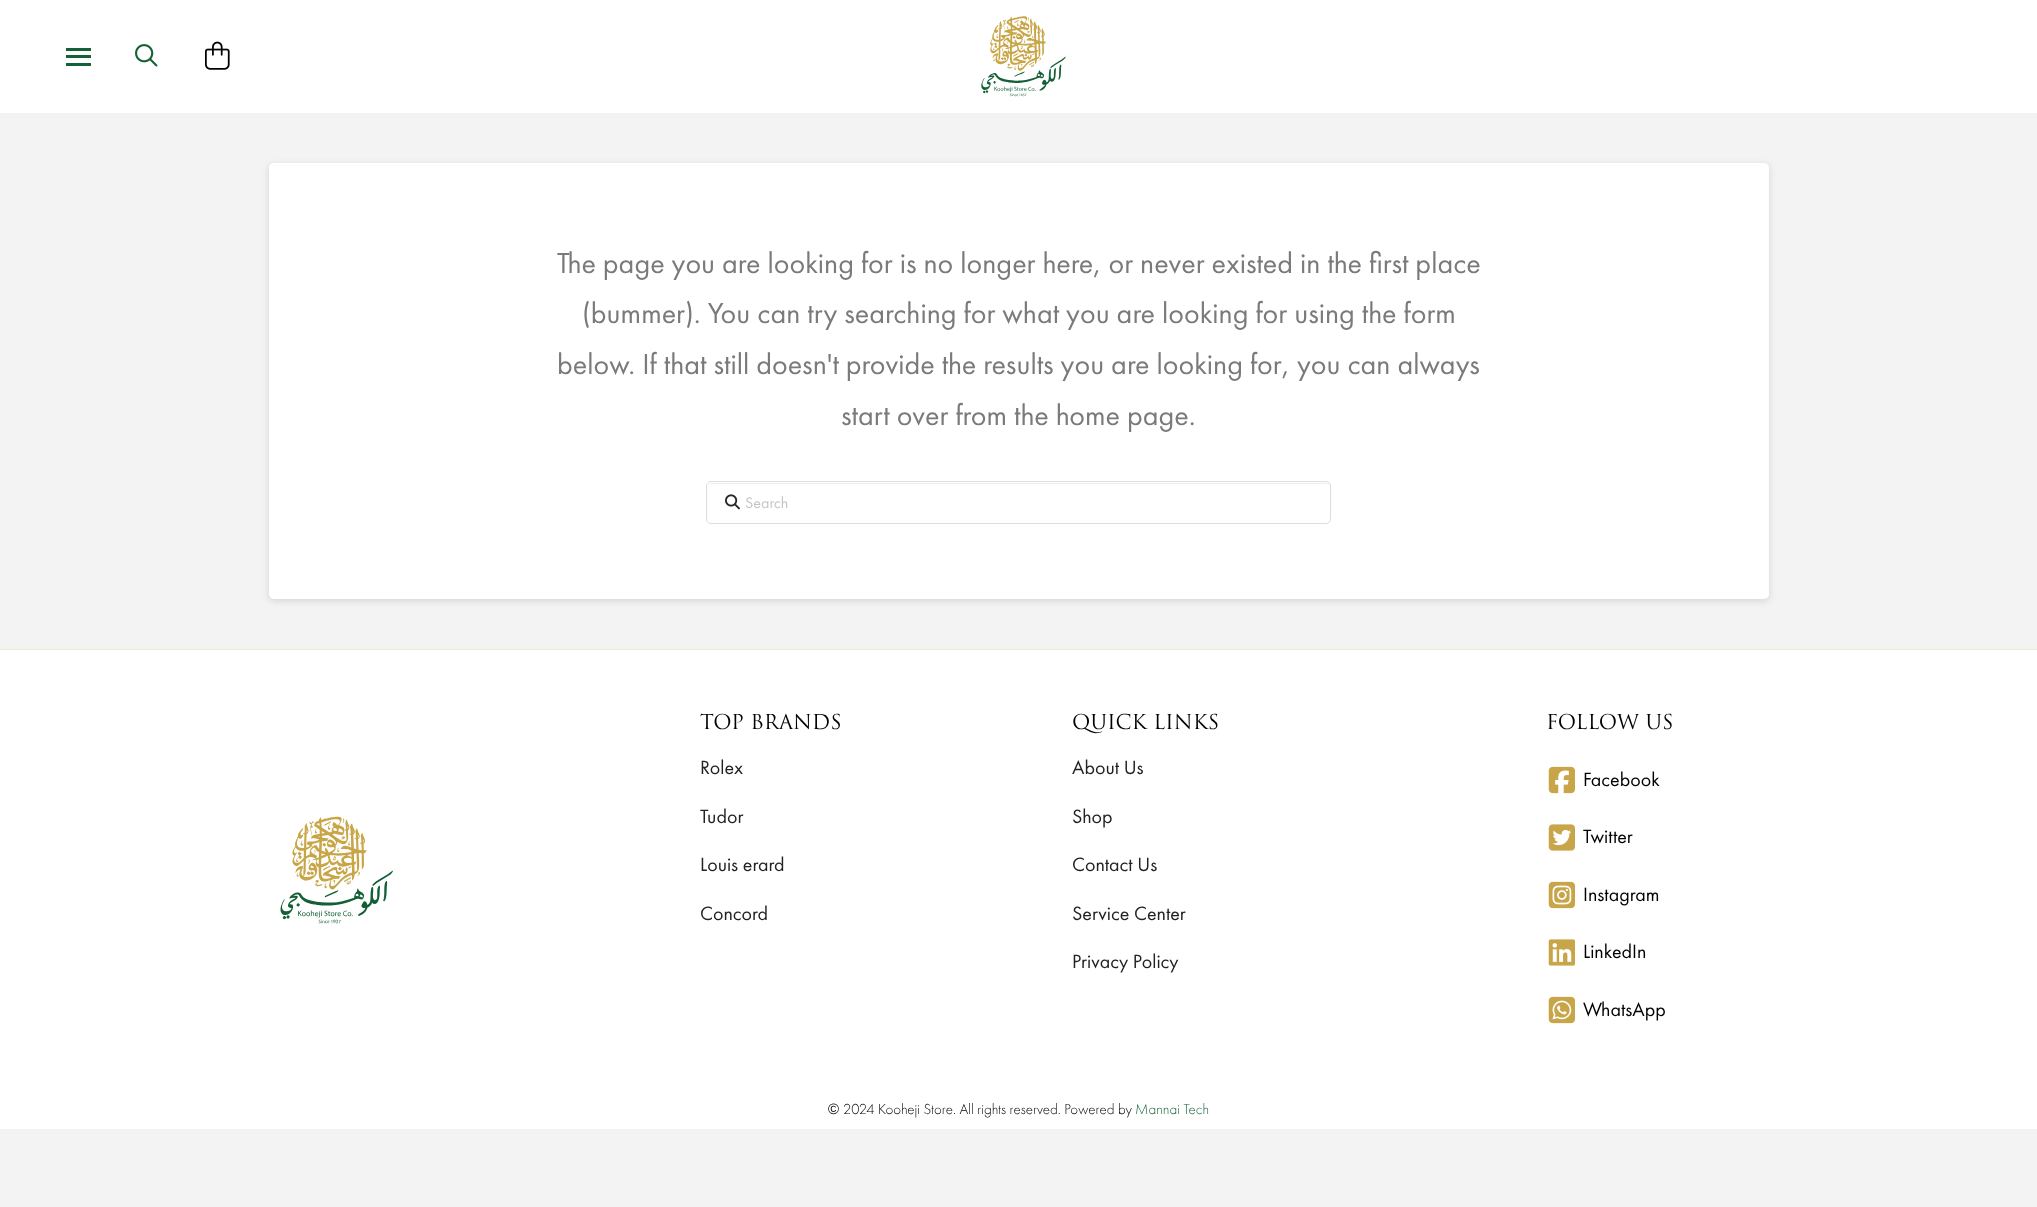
<?xml version="1.0" encoding="UTF-8"?>
<svg xmlns="http://www.w3.org/2000/svg" width="2037" height="1207">
    <defs>
        <filter id="blur1" x="-50%" y="-200%" width="200%" height="500%"><feGaussianBlur stdDeviation="3.5"/></filter>
    </defs>
    <rect width="100%" height="100%" fill="#F3F3F3"/>
    <rect x="0" y="0" width="2037" height="113" fill="#FFFFFF"/>
    <rect x="66" y="48" width="25" height="3" fill="#146137"/>
    <rect x="66" y="55" width="25" height="3" fill="#146137"/>
    <rect x="66" y="63" width="25" height="3" fill="#146137"/>
    <image x="135" y="44" width="23" height="23" href="img_01.png"/>
    <image x="205" y="41" width="25" height="29" href="img_02.png"/>
    <image x="981" y="16" width="85" height="81" href="img_03.png"/>
    <rect x="269" y="165" width="1500" height="436" rx="5" fill="#000000" fill-opacity="0.13" filter="url(#blur1)"/>
    <rect x="269" y="163" width="1500" height="436" rx="5" fill="#FFFFFF"/>
    <text x="557" y="273" font-family="Futura PT" font-size="30" fill="#7A7A7A">The page you are looking for is no longer here, or never existed in the first place</text>
    <text x="582" y="323" font-family="Futura PT" font-size="30" fill="#7A7A7A">(bummer). You can try searching for what you are looking for using the form</text>
    <text x="557" y="374" font-family="Futura PT" font-size="30" fill="#7A7A7A">below. If that still doesn't provide the results you are looking for, you can always</text>
    <text x="841" y="425" font-family="Futura PT" font-size="30" fill="#7A7A7A">start over from the home page.</text>
    <path d="M 711 484 H 1326 C 1328 484 1330 485 1330 488 V 487 C 1330 485 1328 483 1326 483 H 712 C 710 483 708 485 708 487 V 488 C 708 485 709 484 711 484 Z" fill="#ECECEC"/>
    <rect x="706.5" y="481.5" width="624" height="42" rx="4.5" fill="none" stroke="#DDDDDD"/>
    <image x="725" y="494" width="15" height="16" href="img_04.png"/>
    <text x="745" y="508" font-family="Futura PT" font-size="16" fill="#C5C5C5">Search</text>
    <rect x="0" y="650" width="2037" height="479" fill="#FFFFFF"/>
    <rect x="0" y="649" width="2037" height="1" fill="#F2E9D1"/>
    <image x="280" y="816" width="113" height="108" href="img_05.png"/>
    <text x="700" y="729" font-family="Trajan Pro" font-size="20" fill="#000000">TOP BRANDS</text>
    <text x="700" y="774" font-family="Futura PT" font-size="20" fill="#222222">Rolex</text>
    <text x="700" y="823" font-family="Futura PT" font-size="20" fill="#222222">Tudor</text>
    <text x="700" y="871" font-family="Futura PT" font-size="20" fill="#222222">Louis erard</text>
    <text x="700" y="920" font-family="Futura PT" font-size="20" fill="#222222">Concord</text>
    <text x="1072" y="729" font-family="Trajan Pro" font-size="20" fill="#000000">QUICK LINKS</text>
    <text x="1072" y="774" font-family="Futura PT" font-size="20" fill="#222222">About Us</text>
    <text x="1072" y="823" font-family="Futura PT" font-size="20" fill="#222222">Shop</text>
    <text x="1072" y="871" font-family="Futura PT" font-size="20" fill="#222222">Contact Us</text>
    <text x="1072" y="920" font-family="Futura PT" font-size="20" fill="#222222">Service Center</text>
    <text x="1072" y="968" font-family="Futura PT" font-size="20" fill="#222222">Privacy Policy</text>
    <text x="1546" y="729" font-family="Trajan Pro" font-size="20" fill="#000000">FOLLOW US</text>
    <image x="1548" y="766" width="27" height="28" href="img_06.png"/>
    <text x="1583" y="786" font-family="Futura PT" font-size="20" fill="#000000">Facebook</text>
    <image x="1548" y="824" width="27" height="27" href="img_07.png"/>
    <text x="1583" y="843" font-family="Futura PT" font-size="20" fill="#000000">Twitter</text>
    <image x="1548" y="881" width="27" height="28" href="img_08.png"/>
    <text x="1583" y="901" font-family="Futura PT" font-size="20" fill="#000000">Instagram</text>
    <image x="1548" y="939" width="27" height="27" href="img_09.png"/>
    <text x="1583" y="958" font-family="Futura PT" font-size="20" fill="#000000">LinkedIn</text>
    <image x="1548" y="996" width="27" height="28" href="img_10.png"/>
    <text x="1583" y="1016" font-family="Futura PT" font-size="20" fill="#000000">WhatsApp</text>
    <text x="828" y="1114" font-family="Liberation Sans" font-size="15" fill="#000000">©</text>
    <text x="843" y="1114" font-family="Futura PT" font-size="15" font-weight="300" fill="#000000">2024 Kooheji Store. All rights reserved. Powered by</text>
    <text x="1135" y="1114" font-family="Futura PT" font-size="15" font-weight="300" fill="#146137">Mannai Tech</text>
</svg>
